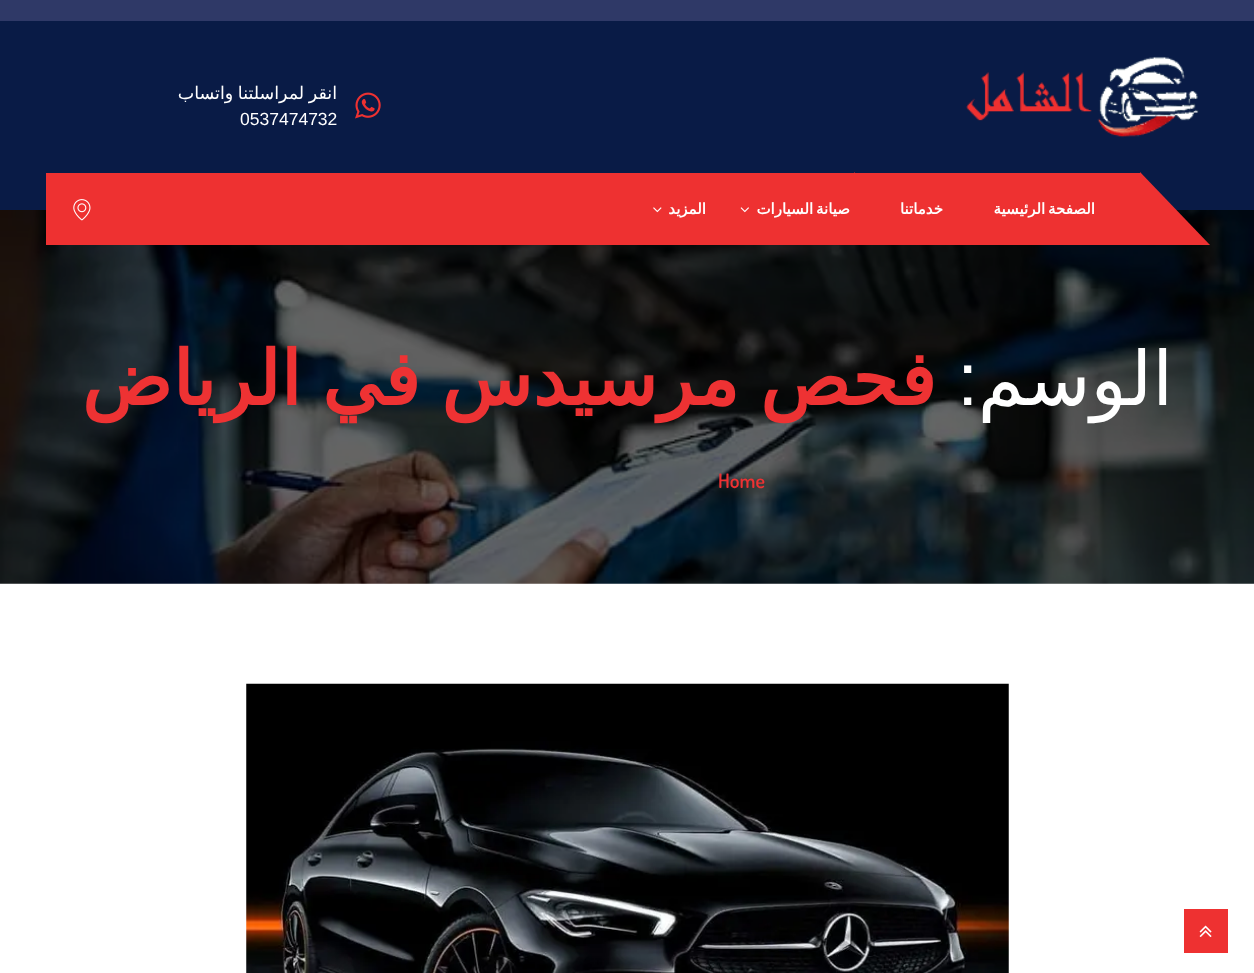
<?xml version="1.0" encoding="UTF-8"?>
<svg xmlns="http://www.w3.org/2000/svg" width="1254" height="973">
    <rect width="100%" height="100%" fill="#FFFFFF"/>
    <rect x="0" y="0" width="1254" height="21" fill="#2F3967"/>
    <rect x="0" y="21" width="1254" height="189" fill="#091B46"/>
    <image x="966" y="56" width="233" height="82" href="img_01.png"/>
    <image x="355" y="92" width="26" height="27" href="img_02.png"/>
    <text x="337" y="99" word-spacing="-1" font-family="DejaVu Sans" font-size="17.5" direction="rtl" fill="#FFFFFF">انقر لمراسلتنا واتساب</text>
    <text x="240" y="125" font-family="Liberation Sans" font-size="17.5" fill="#FFFFFF">0537474732</text>
    <image x="0" y="210" width="1254" height="374" href="img_06.png"/>
    <path d="M 854 245 V 172 L 924 245 Z" fill="#EE3131"/>
    <rect x="46" y="173" width="1094" height="72" fill="#EE3131"/>
    <path d="M 1140 245 V 172 L 1210 245 Z" fill="#EE3131"/>
    <text x="1095" y="214" word-spacing="-2" font-family="DejaVu Sans" font-size="15" font-weight="700" direction="rtl" fill="#FFFFFF">الصفحة الرئيسية</text>
    <text x="943" y="214" font-family="DejaVu Sans" font-size="15" font-weight="700" direction="rtl" fill="#FFFFFF">خدماتنا</text>
    <text x="850" y="214" word-spacing="-2" font-family="DejaVu Sans" font-size="15" font-weight="700" direction="rtl" fill="#FFFFFF">صيانة السيارات</text>
    <image x="740" y="207" width="9" height="6" href="img_03.png"/>
    <text x="706" y="214" font-family="DejaVu Sans" font-size="15" font-weight="700" direction="rtl" fill="#FFFFFF">المزيد</text>
    <image x="653" y="207" width="9" height="6" href="img_04.png"/>
    <image x="73" y="199" width="18" height="22" href="img_05.png"/>
    <text x="1173" y="405" font-family="DejaVu Sans" font-size="75" direction="rtl" fill="#FFFFFF">الوسم</text>
    <text x="978" y="405" font-family="Liberation Sans" font-size="75" direction="rtl" fill="#FFFFFF">:</text>
    <text x="936" y="405" word-spacing="-3" font-family="DejaVu Sans" font-size="75" font-weight="700" direction="rtl" fill="#EE3233">فحص مرسيدس في الرياض</text>
    <text x="718" y="488" font-family="Dosis" font-size="20" font-weight="600" fill="#EE3233">Home</text>
    <rect x="1184" y="909" width="44" height="44" fill="#EE3131"/>
    <image x="1199" y="925" width="13" height="12" href="img_07.png"/>
    <image x="246" y="683" width="763" height="290" href="img_08.png"/>
</svg>
